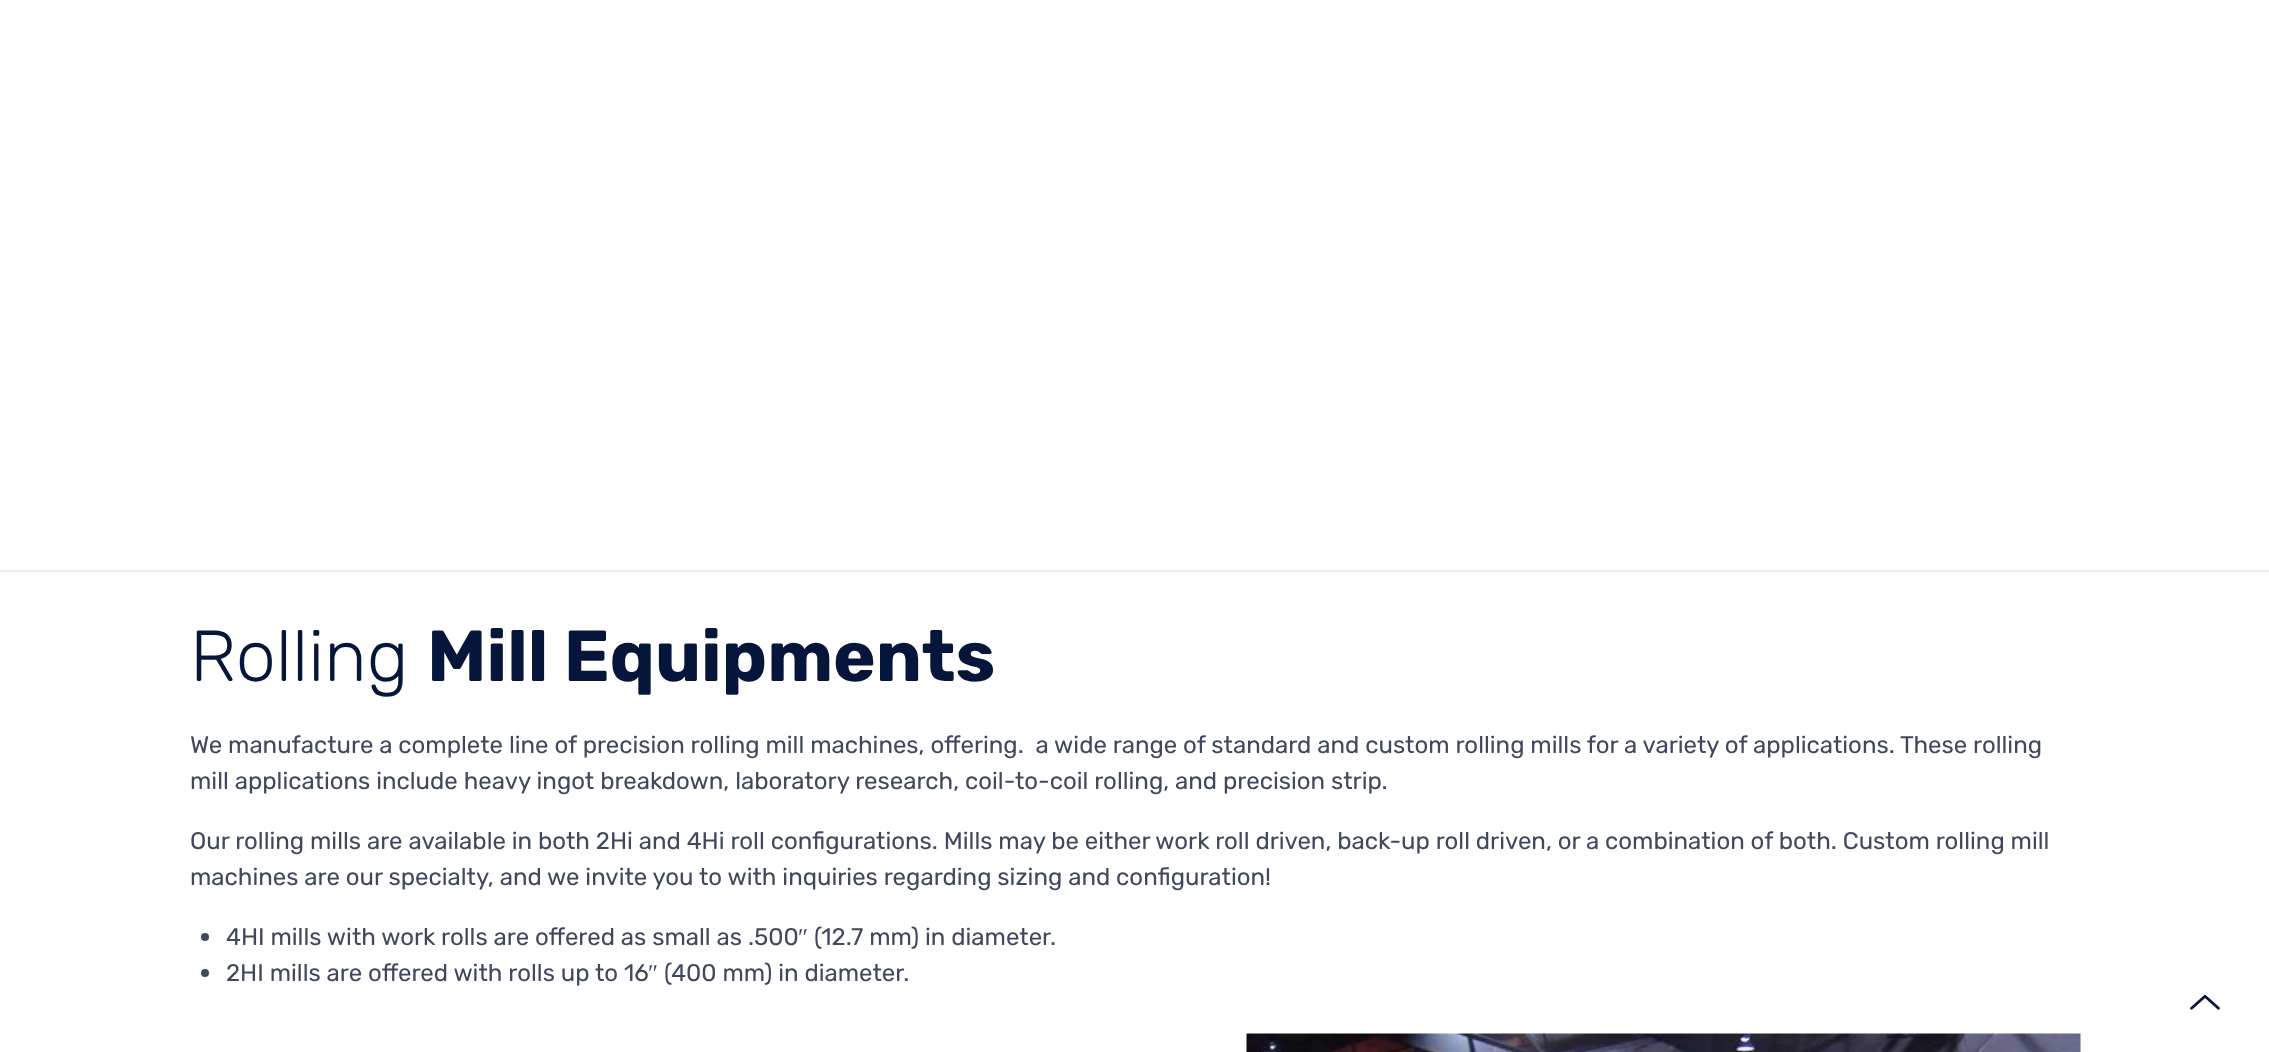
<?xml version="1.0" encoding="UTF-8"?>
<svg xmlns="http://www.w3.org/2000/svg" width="2269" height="1052">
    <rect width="100%" height="100%" fill="#FFFFFF"/>
    <rect x="0" y="570" width="2269" height="2" fill="#EDEDED"/>
    <text x="190" y="681" font-family="Rubik" font-size="72" font-weight="300" fill="#06163A">Rolling</text>
    <text x="427" y="681" font-family="Rubik" font-size="72" font-weight="700" fill="#06163A">Mill Equipments</text>
    <text font-family="Rubik" font-size="24" fill="#3F485D" xml:space="preserve"><tspan x="190" y="753">We manufacture a complete line of precision rolling mill machines, offering.  a wide range of standard and custom rolling mills for a variety of applications. These rolling</tspan><tspan x="190" y="789">mill applications include heavy ingot breakdown, laboratory research, coil-to-coil rolling, and precision strip.</tspan></text>
    <text font-family="Rubik" font-size="24" fill="#3F485D">
        <tspan x="190" y="849">Our rolling mills are available in both 2Hi and 4Hi roll configurations. Mills may be either work roll driven, back-up roll driven, or a combination of both. Custom rolling mill</tspan>
        <tspan x="190" y="885">machines are our specialty, and we invite you to with inquiries regarding sizing and configuration!</tspan>
    </text>
    <text x="226" y="945" font-family="Rubik" font-size="24" fill="#3F485D">4HI mills with work rolls are offered as small as .500</text>
    <text x="798" y="945" font-family="Liberation Serif" font-size="24" fill="#3F485D">″</text>
    <text x="814" y="945" font-family="Rubik" font-size="24" fill="#3F485D">(12.7 mm) in diameter.</text>
    <circle cx="205" cy="937" r="4" fill="#3F485D"/>
    <text x="226" y="981" font-family="Rubik" font-size="24" fill="#3F485D">2HI mills are offered with rolls up to 16</text>
    <text x="648" y="981" font-family="Liberation Serif" font-size="24" fill="#3F485D">″</text>
    <text x="664" y="981" font-family="Rubik" font-size="24" fill="#3F485D">(400 mm) in diameter.</text>
    <circle cx="205" cy="973" r="4" fill="#3F485D"/>
    <image x="1246" y="1033" width="835" height="19" href="img_01.png"/>
    <image x="2190" y="994" width="30" height="16" href="img_02.png"/>
</svg>
